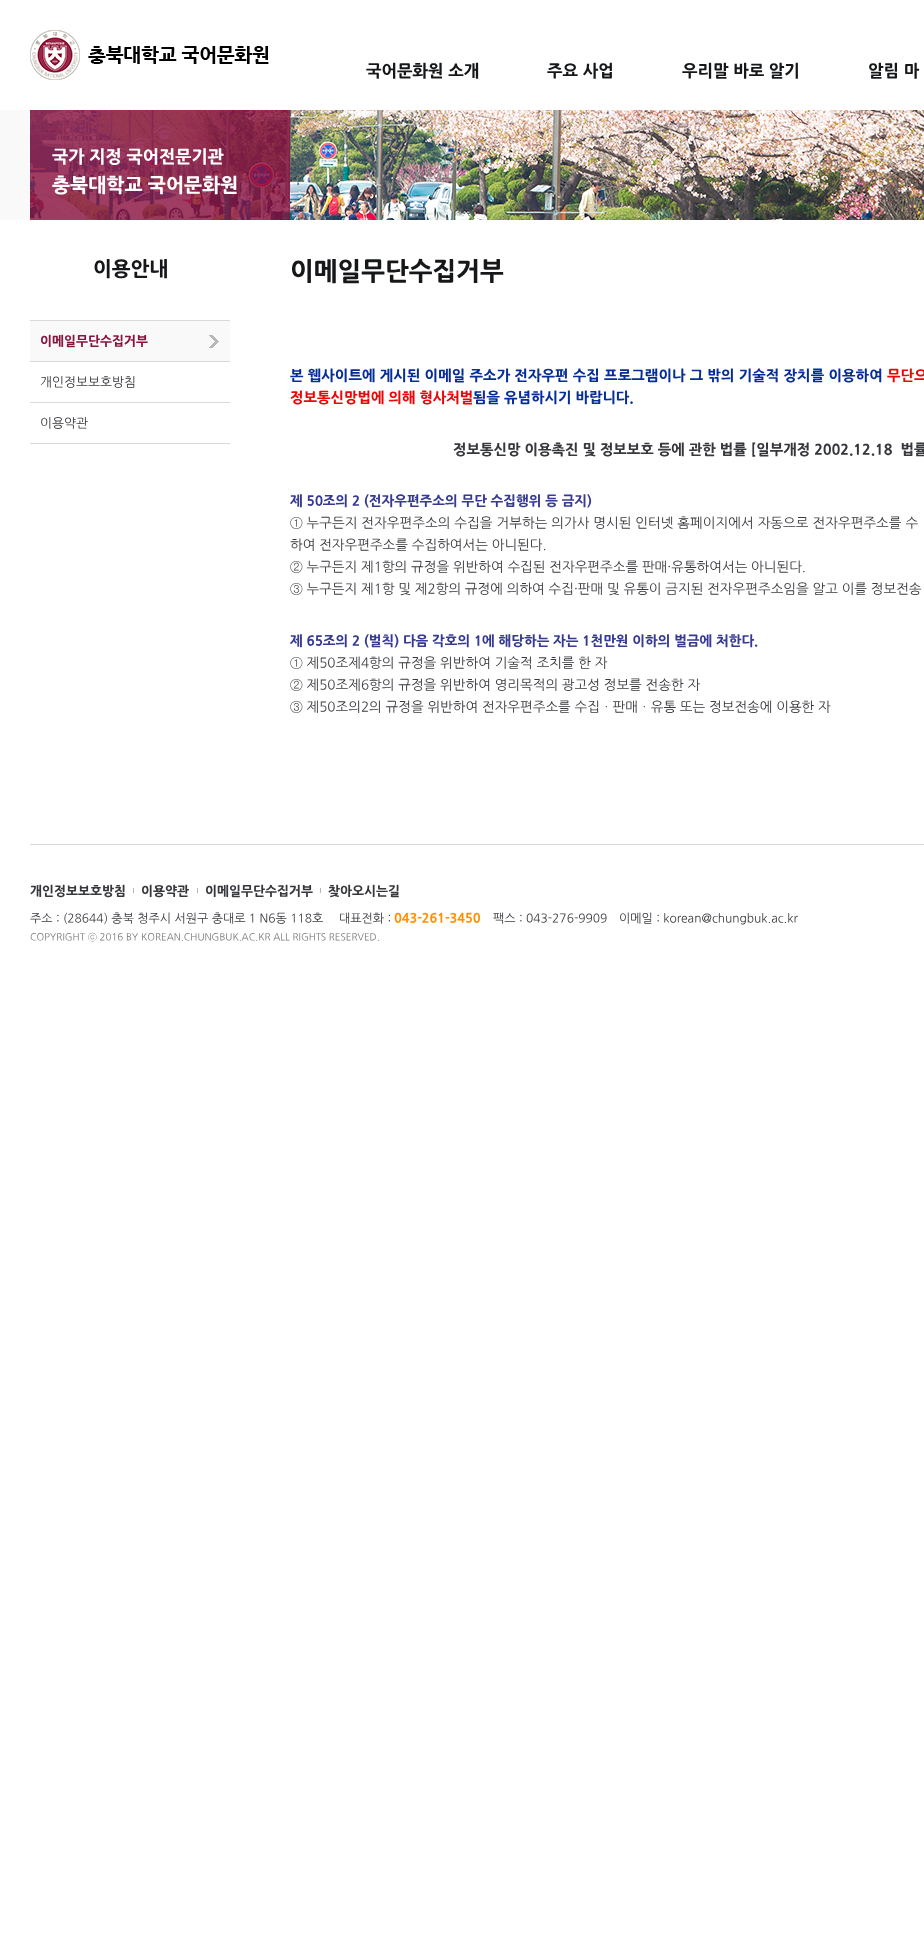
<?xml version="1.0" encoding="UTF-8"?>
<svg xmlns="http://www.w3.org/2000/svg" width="924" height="1951">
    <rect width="100%" height="100%" fill="#FFFFFF"/>
    <image x="30" y="30" width="239" height="50" href="img_01.png"/>
    <text x="366" y="76" font-family="NanumGothic" font-size="16.5" font-weight="800" fill="#151719">국어문화원 소개</text>
    <text x="547" y="76" font-family="NanumGothic" font-size="16.5" font-weight="800" fill="#151719">주요 사업</text>
    <text x="682" y="76" font-family="NanumGothic" font-size="16.5" font-weight="800" fill="#151719">우리말 바로 알기</text>
    <text x="868" y="76" font-family="NanumGothic" font-size="16.5" font-weight="800" fill="#151719">알림 마</text>
    <rect x="0" y="110" width="30" height="110" fill="#F9F9F9"/>
    <image x="30" y="110" width="894" height="110" href="img_02.png"/>
    <rect x="30" y="110" width="260" height="110" fill="#870D3C" fill-opacity="0.8"/>
    <text x="52" y="162" font-family="NanumGothic" font-size="17.25" font-weight="800" fill="#FFFFFF">국가 지정 국어전문기관</text>
    <text x="52" y="191" font-family="NanumGothic" font-size="19.25" font-weight="800" fill="#FFFFFF">충북대학교 국어문화원</text>
    <text x="93" y="275" font-family="NanumGothic" font-size="20" font-weight="800" fill="#151719">이용안내</text>
    <rect x="30" y="321" width="200" height="40" fill="#F9F9F9"/>
    <image x="209" y="335" width="10" height="13" href="img_03.png"/>
    <rect x="30" y="320" width="200" height="1" fill="#D9D9D9"/>
    <text x="40" y="345" font-family="NanumGothic" font-size="12.75" font-weight="800" fill="#841640">이메일무단수집거부</text>
    <rect x="30" y="361" width="200" height="1" fill="#D9D9D9"/>
    <text x="40" y="386" font-family="NanumGothic" font-size="12.75" fill="#37383D">개인정보보호방침</text>
    <rect x="30" y="402" width="200" height="1" fill="#D9D9D9"/>
    <rect x="30" y="443" width="200" height="1" fill="#D9D9D9"/>
    <text x="40" y="427" font-family="NanumGothic" font-size="12.75" fill="#37383D">이용약관</text>
    <text x="290" y="279" font-family="NanumGothic" font-size="25.25" font-weight="800" fill="#151719">이메일무단수집거부</text>
    <text x="290" y="380" font-family="NanumGothic" font-size="14.35" font-weight="800" letter-spacing="0.1" fill="#072E96">본 웹사이트에 게시된 이메일 주소가 전자우편 수집 프로그램이나 그 밖의 기술적 장치를 이용하여</text>
    <text x="887" y="380" font-family="NanumGothic" font-size="14.35" font-weight="800" fill="#EA0707">무단으</text>
    <text x="290" y="402" font-family="NanumGothic" font-size="14.35" font-weight="800" fill="#EA0707">정보통신망법에 의해 형사처벌</text>
    <text x="473" y="402" font-family="NanumGothic" font-size="14.35" font-weight="800" fill="#072E96">됨을 유념하시기 바랍니다.</text>
    <text x="453" y="454" font-family="NanumGothic" font-size="14.35" font-weight="800" fill="#37383D" xml:space="preserve">정보통신망 이용촉진 및 정보보호 등에 관한 법률 [일부개정 2002.12.18  법률</text>
    <text x="290" y="505" font-family="NanumGothic" font-size="13.5" font-weight="800" fill="#363A91">제 50조의 2 (전자우편주소의 무단 수집행위 등 금지)</text>
    <text x="290" y="527" font-family="NanumGothic" font-size="13.5" letter-spacing="0.05" fill="#37383D">① 누구든지 전자우편주소의 수집을 거부하는 의가사 명시된 인터넷 홈페이지에서 자동으로 전자우편주소를 수</text>
    <text font-family="NanumGothic" font-size="13.5" fill="#37383D">
        <tspan x="290" y="549">하여 전자우편주소를 수집하여서는 아니된다.</tspan>
        <tspan x="290" y="571">② 누구든지 제1항의 규정을 위반하여 수집된 전자우편주소를 판매·유통하여서는 아니된다.</tspan>
        <tspan x="290" y="593">③ 누구든지 제1항 및 제2항의 규정에 의하여 수집·판매 및 유통이 금지된 전자우편주소임을 알고 이를 정보전송</tspan>
    </text>
    <text x="290" y="645" font-family="NanumGothic" font-size="13.5" font-weight="800" fill="#363A91">제 65조의 2 (벌칙) 다음 각호의 1에 해당하는 자는 1천만원 이하의 벌금에 처한다.</text>
    <text font-family="NanumGothic" font-size="13.5" fill="#37383D">
        <tspan x="290" y="667">① 제50조제4항의 규정을 위반하여 기술적 조치를 한 자</tspan>
        <tspan x="290" y="689">② 제50조제6항의 규정을 위반하여 영리목적의 광고성 정보를 전송한 자</tspan>
        <tspan x="290" y="711">③ 제50조의2의 규정을 위반하여 전자우편주소를 수집ㆍ판매ㆍ유통 또는 정보전송에 이용한 자</tspan>
    </text>
    <rect x="30" y="844" width="894" height="1" fill="#D9D9D9"/>
    <text x="30" y="895" font-family="NanumGothic" font-size="12.75" font-weight="800" fill="#37383D">개인정보보호방침</text>
    <text x="141" y="895" font-family="NanumGothic" font-size="12.75" font-weight="800" fill="#37383D">이용약관</text>
    <rect x="133" y="888" width="1" height="5" fill="#B6B6B6"/>
    <text x="205" y="895" font-family="NanumGothic" font-size="12.75" font-weight="800" fill="#37383D">이메일무단수집거부</text>
    <rect x="197" y="888" width="1" height="5" fill="#B6B6B6"/>
    <text x="328" y="895" font-family="NanumGothic" font-size="12.75" font-weight="800" fill="#37383D">찾아오시는길</text>
    <rect x="320" y="888" width="1" height="5" fill="#B6B6B6"/>
    <text x="30" y="922" font-family="NanumGothic" font-size="12" fill="#37383D">주소 : (28644) 충북 청주시 서원구 충대로 1 N6동 118호</text>
    <text x="339" y="922" font-family="NanumGothic" font-size="12" fill="#37383D">대표전화 :</text>
    <text x="394" y="922" font-family="NanumGothic" font-size="12.75" font-weight="800" fill="#FF9000">043-261-3450</text>
    <text x="493" y="922" font-family="NanumGothic" font-size="12" fill="#37383D">팩스 : 043-276-9909</text>
    <text x="619" y="922" font-family="NanumGothic" font-size="12" fill="#37383D">이메일 : korean@chungbuk.ac.kr</text>
    <text x="30" y="940" font-family="NanumGothic" font-size="9.75" fill="#777777">COPYRIGHT ⓒ 2016 BY KOREAN.CHUNGBUK.AC.KR ALL RIGHTS RESERVED.</text>
</svg>
